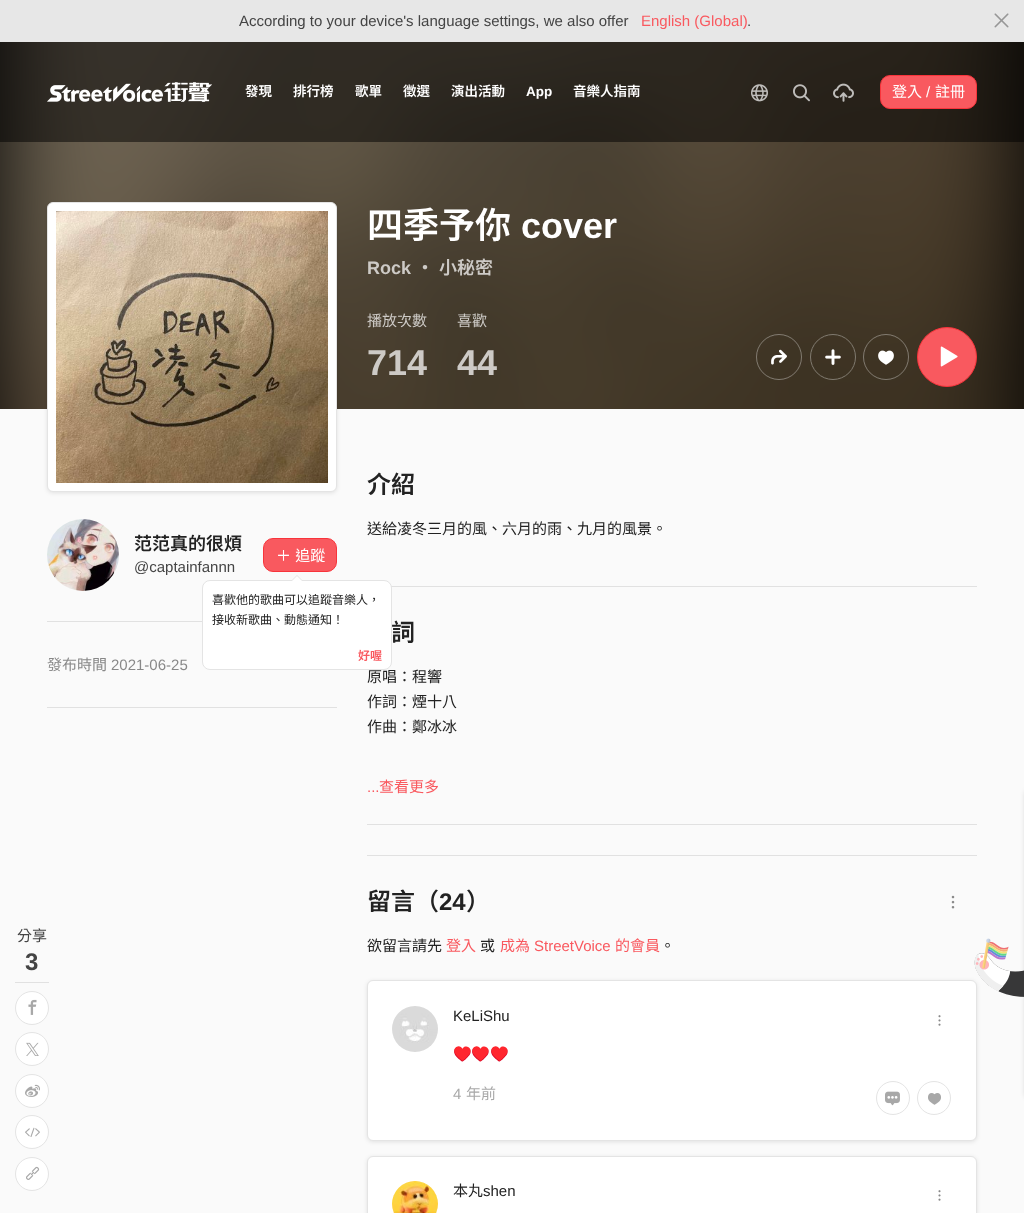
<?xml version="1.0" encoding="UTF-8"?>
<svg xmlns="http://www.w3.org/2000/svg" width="1024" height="1213">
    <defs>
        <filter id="blur1" x="-50%" y="-200%" width="200%" height="500%"><feGaussianBlur stdDeviation="2"/></filter>
    </defs>
    <rect width="100%" height="100%" fill="#FAFAFA"/>
    <rect x="0" y="0" width="1024" height="42" fill="#E7E7E7"/>
    <text x="239" y="26" font-family="Liberation Sans" font-size="15" fill="#444444">According to your device's language settings, we also offer</text>
    <text x="641" y="26" font-family="Liberation Sans" font-size="15" fill="#F9595F">English (Global)</text>
    <text x="747" y="26" font-family="Liberation Sans" font-size="15" fill="#444444">.</text>
    <image x="994" y="13" width="15" height="15" href="img_01.png"/>
    <rect x="0" y="42" width="1024" height="367" fill="#000000"/>
    <image x="0" y="42" width="1024" height="367" href="img_06.png"/>
    <rect x="0" y="42" width="1024" height="100" fill="#000000" fill-opacity="0.5"/>
    <image x="47" y="82" width="165" height="20" href="img_02.png"/>
    <text x="245" y="96" font-family="Noto Sans TC" font-size="13.5" font-weight="600" fill="#FFFFFF">發現</text>
    <text x="293" y="96" font-family="Noto Sans TC" font-size="13.5" font-weight="600" fill="#FFFFFF">排行榜</text>
    <text x="355" y="96" font-family="Noto Sans TC" font-size="13.5" font-weight="600" fill="#FFFFFF">歌單</text>
    <text x="403" y="96" font-family="Noto Sans TC" font-size="13.5" font-weight="600" fill="#FFFFFF">徵選</text>
    <text x="451" y="96" font-family="Noto Sans TC" font-size="13.5" font-weight="600" fill="#FFFFFF">演出活動</text>
    <text x="526" y="96" font-family="Liberation Sans" font-size="13.5" font-weight="700" fill="#FFFFFF">App</text>
    <text x="573" y="96" font-family="Noto Sans TC" font-size="13.5" font-weight="600" fill="#FFFFFF">音樂人指南</text>
    <image x="751" y="84" width="17" height="18" href="img_03.png"/>
    <image x="793" y="84" width="17" height="18" href="img_04.png"/>
    <image x="833" y="83" width="21" height="19" href="img_05.png"/>
    <rect x="880.5" y="75.5" width="96" height="33" rx="9.5" fill="#F9595F" stroke="#F8343B"/>
    <text x="892" y="97" font-family="Noto Sans TC" font-size="15" fill="#FFFFFF">登入</text>
    <text x="926" y="97" font-family="Liberation Sans" font-size="15" fill="#FFFFFF">/</text>
    <text x="935" y="97" font-family="Noto Sans TC" font-size="15" fill="#FFFFFF">註冊</text>
    <rect x="47" y="203" width="290" height="290" rx="6" fill="#000000" fill-opacity="0.1" filter="url(#blur1)"/>
    <rect x="47.5" y="202.5" width="289" height="289" rx="5.5" fill="#FFFFFF" stroke="#E4E4E4"/>
    <image x="56" y="211" width="272" height="272" href="img_07.png"/>
    <text x="367" y="238" font-family="Noto Sans TC" font-size="36" font-weight="600" fill="#FFFFFF">四季予你</text>
    <text x="521" y="238" font-family="Liberation Sans" font-size="36" font-weight="700" fill="#FFFFFF">cover</text>
    <text x="367" y="274" font-family="Liberation Sans" font-size="18" font-weight="700" fill="#CDCAC6">Rock</text>
    <text x="416" y="274" font-family="Noto Sans TC" font-size="18" font-weight="600" fill="#CDCAC6">・</text>
    <text x="439" y="274" font-family="Noto Sans TC" font-size="18" font-weight="600" fill="#CDCAC6">小秘密</text>
    <text x="367" y="326" font-family="Noto Sans TC" font-size="15" fill="#CDCAC6">播放次數</text>
    <text x="367" y="375" font-family="Liberation Sans" font-size="36" font-weight="700" fill="#CDCAC6">714</text>
    <text x="457" y="326" font-family="Noto Sans TC" font-size="15" fill="#CDCAC6">喜歡</text>
    <text x="457" y="375" font-family="Liberation Sans" font-size="36" font-weight="700" fill="#CDCAC6">44</text>
    <circle cx="779" cy="357" r="22.5" fill="none" stroke="#FFFFFF" stroke-opacity="0.35"/>
    <image x="771" y="349" width="16" height="16" href="img_08.png"/>
    <circle cx="833" cy="357" r="22.5" fill="none" stroke="#817B70"/>
    <image x="825" y="349" width="16" height="16" href="img_09.png"/>
    <circle cx="886" cy="357" r="22.5" fill="none" stroke="#FFFFFF" stroke-opacity="0.35"/>
    <image x="878" y="350" width="16" height="15" href="img_10.png"/>
    <circle cx="947" cy="357" r="29.5" fill="#F9595F" stroke="#F8343B"/>
    <image x="940" y="346" width="18" height="21" href="img_11.png"/>
    <text x="17" y="941" font-family="Noto Sans TC" font-size="15" fill="#444444">分享</text>
    <text x="25" y="970" font-family="Liberation Sans" font-size="24" font-weight="700" fill="#444444">3</text>
    <rect x="15" y="982" width="34" height="1" fill="#E1E1E1"/>
    <circle cx="32" cy="1008" r="16.5" fill="#FFFFFF" stroke="#E4E4E4"/>
    <image x="28" y="999" width="9" height="16" href="img_12.png"/>
    <circle cx="32" cy="1049" r="16.5" fill="#FFFFFF" stroke="#E4E4E4"/>
    <image x="26" y="1042" width="13" height="14" href="img_13.png"/>
    <circle cx="32" cy="1091" r="16.5" fill="#FFFFFF" stroke="#E4E4E4"/>
    <image x="25" y="1084" width="15" height="13" href="img_14.png"/>
    <circle cx="32" cy="1132" r="16.5" fill="#FFFFFF" stroke="#E4E4E4"/>
    <image x="25" y="1127" width="15" height="10" href="img_15.png"/>
    <circle cx="32" cy="1174" r="16.5" fill="#FFFFFF" stroke="#E4E4E4"/>
    <image x="26" y="1166" width="14" height="14" href="img_16.png"/>
    <rect x="47" y="621" width="155" height="1" fill="#E1E1E1"/>
    <image x="47" y="519" width="72" height="72" href="img_17.png"/>
    <text x="134" y="550" font-family="Noto Sans TC" font-size="18" font-weight="600" fill="#222222">范范真的很煩</text>
    <text x="134" y="572" font-family="Liberation Sans" font-size="15" fill="#444444">@captainfannn</text>
    <rect x="263.5" y="538.5" width="73" height="33" rx="9.5" fill="#F9595F" stroke="#F8343B"/>
    <text x="276" y="561" word-spacing="1" font-family="Noto Sans TC" font-size="15" fill="#FFFFFF">＋ 追蹤</text>
    <rect x="391" y="586" width="586" height="1" fill="#E1E1E1"/>
    <text x="367" y="682" font-family="Noto Sans TC" font-size="15" fill="#222222">原唱：程響</text>
    <rect x="202.5" y="580.5" width="189" height="89" rx="7.5" fill="#FFFFFF" stroke="#E4E4E4"/>
    <path d="M 303 581 H 291 L 297 575 Z" fill="#E4E4E4"/>
    <path d="M 302 581 H 292 L 297 576 Z" fill="#FFFFFF"/>
    <text font-family="Noto Sans TC" font-size="12" fill="#222222">
        <tspan x="212" y="604">喜歡他的歌曲可以追蹤音樂人，</tspan>
        <tspan x="212" y="624">接收新歌曲、動態通知！</tspan>
    </text>
    <text x="358" y="660" font-family="Noto Sans TC" font-size="12" font-weight="600" fill="#F9595F">好喔</text>
    <text x="47" y="670" font-family="Noto Sans TC" font-size="15" fill="#888888">發布時間</text>
    <text x="111" y="670" font-family="Liberation Sans" font-size="15" fill="#888888">2021-06-25</text>
    <rect x="47" y="707" width="290" height="1" fill="#E1E1E1"/>
    <text x="367" y="493" font-family="Noto Sans TC" font-size="24" font-weight="600" fill="#222222">介紹</text>
    <text x="367" y="534" font-family="Noto Sans TC" font-size="15" fill="#222222">送給凌冬三月的風、六月的雨、九月的風景。</text>
    <text x="391" y="641" font-family="Noto Sans TC" font-size="24" font-weight="600" fill="#222222">詞</text>
    <text font-family="Noto Sans TC" font-size="15" fill="#222222">
        <tspan x="367" y="707">作詞：煙十八</tspan>
        <tspan x="367" y="732">作曲：鄭冰冰</tspan>
    </text>
    <text x="367" y="792" font-family="Liberation Sans" font-size="15" fill="#F9595F">...</text>
    <text x="379" y="792" font-family="Noto Sans TC" font-size="15" fill="#F9595F">查看更多</text>
    <rect x="367" y="824" width="610" height="1" fill="#E1E1E1"/>
    <rect x="367" y="855" width="610" height="1" fill="#E1E1E1"/>
    <text x="367" y="910" font-family="Noto Sans TC" font-size="24" font-weight="600" fill="#222222">留言（</text>
    <text x="439" y="910" font-family="Liberation Sans" font-size="24" font-weight="700" fill="#222222">24</text>
    <text x="466" y="910" font-family="Noto Sans TC" font-size="24" font-weight="600" fill="#222222">）</text>
    <image x="951" y="895" width="4" height="14" href="img_18.png"/>
    <text x="367" y="951" font-family="Noto Sans TC" font-size="15" fill="#222222">欲留言請先</text>
    <text x="446" y="951" font-family="Noto Sans TC" font-size="15" fill="#F9595F">登入</text>
    <text x="480" y="951" font-family="Noto Sans TC" font-size="15" fill="#222222">或</text>
    <text x="500" y="951" font-family="Noto Sans TC" font-size="15" fill="#F9595F">成為</text>
    <text x="534" y="951" font-family="Liberation Sans" font-size="15" fill="#F9595F">StreetVoice</text>
    <text x="615" y="951" font-family="Noto Sans TC" font-size="15" fill="#F9595F">的會員</text>
    <text x="660" y="951" font-family="Noto Sans TC" font-size="15" fill="#222222">。</text>
    <rect x="367" y="981" width="610" height="161" rx="6" fill="#000000" fill-opacity="0.1" filter="url(#blur1)"/>
    <rect x="367.5" y="980.5" width="609" height="160" rx="5.5" fill="#FFFFFF" stroke="#E4E4E4"/>
    <image x="392" y="1006" width="46" height="46" href="img_19.png"/>
    <text x="453" y="1021" font-family="Liberation Sans" font-size="15" fill="#222222">KeLiShu</text>
    <image x="938" y="1015" width="3" height="11" href="img_20.png"/>
    <text x="453" y="1059" font-family="Noto Color Emoji" font-size="15" fill="#222222">♥️♥️♥️</text>
    <text x="453" y="1099" font-family="Liberation Sans" font-size="15" fill="#A8A8A8">4</text>
    <text x="466" y="1099" font-family="Noto Sans TC" font-size="15" fill="#A8A8A8">年前</text>
    <circle cx="893" cy="1098" r="16.5" fill="none" stroke="#E4E4E4"/>
    <image x="885" y="1091" width="15" height="15" href="img_21.png"/>
    <circle cx="934" cy="1098" r="16.5" fill="none" stroke="#E4E4E4"/>
    <image x="928" y="1093" width="13" height="12" href="img_22.png"/>
    <rect x="367" y="1157" width="610" height="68" rx="6" fill="#000000" fill-opacity="0.1" filter="url(#blur1)"/>
    <rect x="367.5" y="1156.5" width="609" height="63" rx="5.5" fill="#FFFFFF" stroke="#E4E4E4"/>
    <image x="392" y="1181" width="46" height="32" href="img_23.png"/>
    <text x="453" y="1196" font-family="Noto Sans TC" font-size="15" fill="#222222">本丸</text>
    <text x="483" y="1196" font-family="Liberation Sans" font-size="15" fill="#222222">shen</text>
    <image x="938" y="1190" width="3" height="11" href="img_20.png"/>
    <rect x="1024" y="789" width="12" height="310" rx="6" fill="#000000" fill-opacity="0.1" filter="url(#blur1)"/>
    <image x="974" y="938" width="50" height="59" href="img_24.png"/>
</svg>
